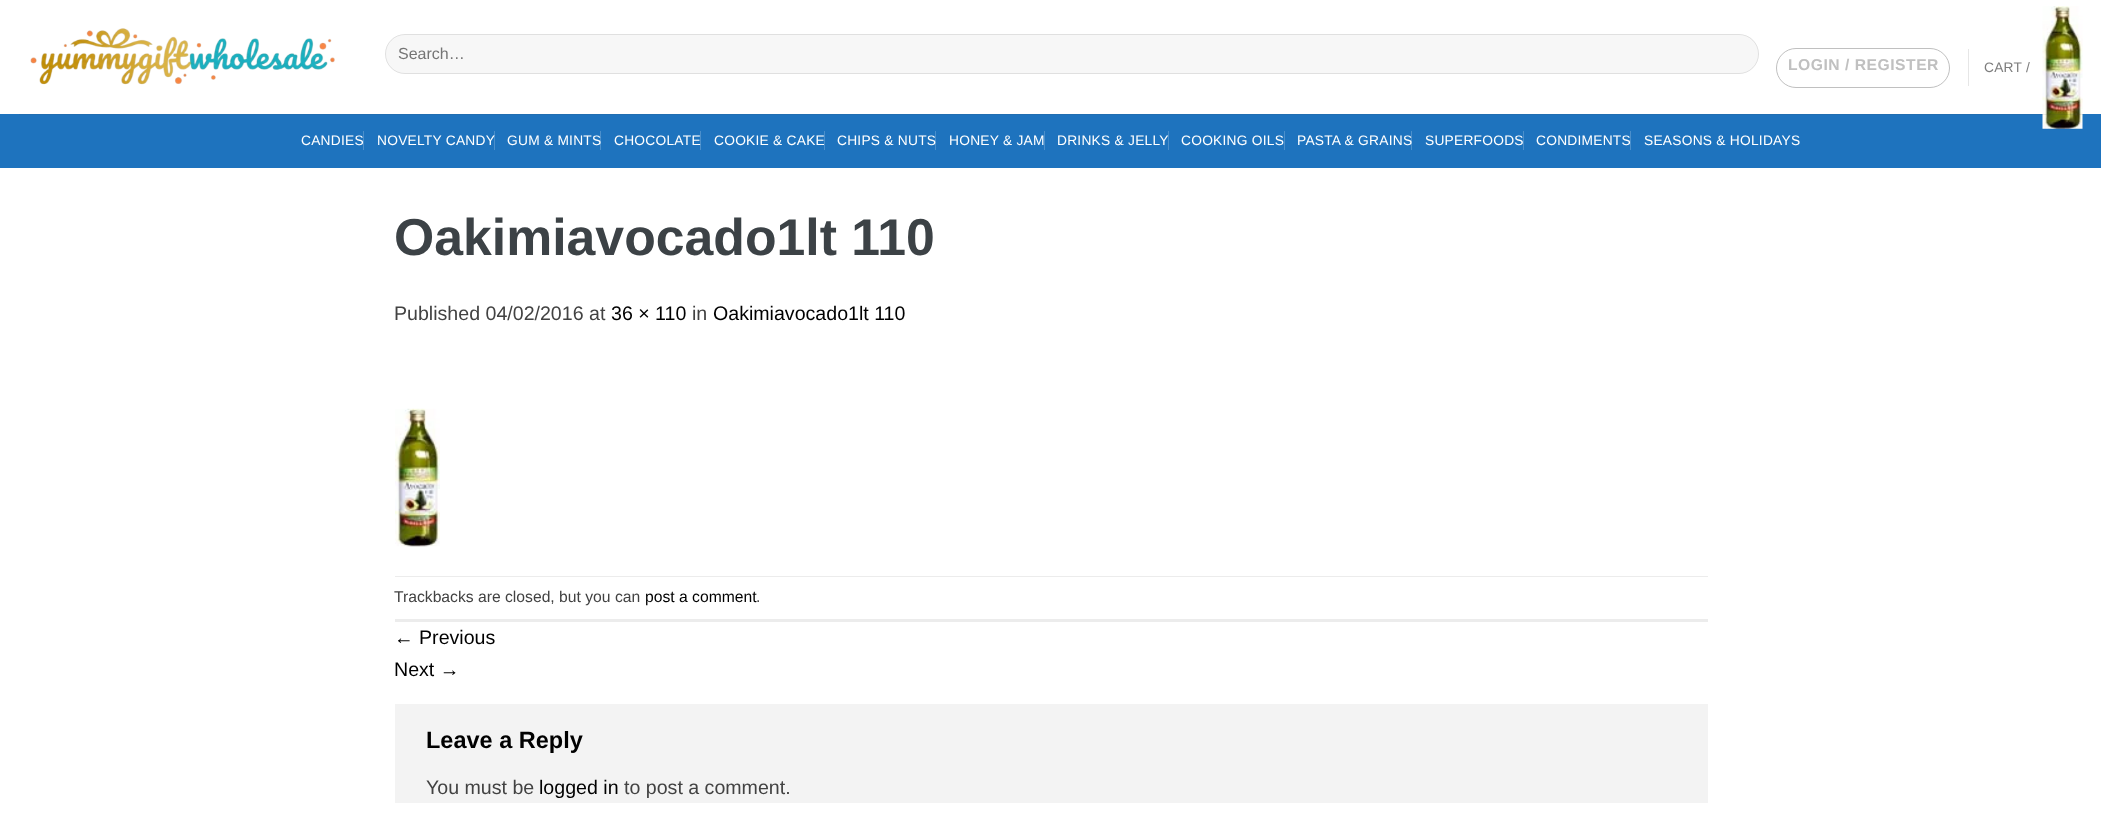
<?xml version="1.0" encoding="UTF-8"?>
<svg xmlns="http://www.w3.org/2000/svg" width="2101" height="836">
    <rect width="100%" height="100%" fill="#FFFFFF"/>
    <image x="30" y="28" width="305" height="57" href="img_01.png"/>
    <rect x="385" y="34" width="1374" height="40" rx="20" fill="#F7F7F7"/>
    <rect x="385.5" y="34.5" width="1373" height="39" rx="19.5" fill="none" stroke="#000000" stroke-opacity="0.09"/>
    <text x="398" y="59" font-family="Liberation Sans" font-size="16" fill="#757575">Search…</text>
    <rect x="1776.5" y="48.5" width="173" height="39" rx="19.5" fill="none" stroke="#C0C0C0"/>
    <text x="1788" y="70" font-family="Liberation Sans" font-size="15.7" font-weight="700" letter-spacing="0.5" fill="#C0C0C0">LOGIN / REGISTER</text>
    <rect x="1968" y="49" width="1" height="37" fill="#E6E6E6"/>
    <text x="1984" y="72" font-family="Liberation Sans" font-size="13.75" letter-spacing="0.25" fill="#7D7D7D">CART /</text>
    <rect x="0" y="114" width="2101" height="54" fill="#1E73BE"/>
    <image x="2042" y="6" width="41" height="123" href="img_02.png"/>
    <rect x="19" y="114" width="2064" height="1" fill="#424242" fill-opacity="0.1"/>
    <text x="301" y="145" font-family="Liberation Sans" font-size="13.75" letter-spacing="0.25" fill="#FFFFFF">CANDIES</text>
    <rect x="363" y="131" width="1" height="19" fill="#FFFFFF" fill-opacity="0.2"/>
    <text x="377" y="145" font-family="Liberation Sans" font-size="13.75" letter-spacing="0.25" fill="#FFFFFF">NOVELTY CANDY</text>
    <rect x="494" y="131" width="1" height="19" fill="#FFFFFF" fill-opacity="0.2"/>
    <text x="507" y="145" font-family="Liberation Sans" font-size="13.75" letter-spacing="0.25" fill="#FFFFFF">GUM &amp; MINTS</text>
    <rect x="600" y="131" width="1" height="19" fill="#FFFFFF" fill-opacity="0.2"/>
    <text x="614" y="145" font-family="Liberation Sans" font-size="13.75" letter-spacing="0.25" fill="#FFFFFF">CHOCOLATE</text>
    <rect x="700" y="131" width="1" height="19" fill="#FFFFFF" fill-opacity="0.2"/>
    <text x="714" y="145" font-family="Liberation Sans" font-size="13.75" letter-spacing="0.25" fill="#FFFFFF">COOKIE &amp; CAKE</text>
    <rect x="824" y="131" width="1" height="19" fill="#4B8FCB"/>
    <text x="837" y="145" font-family="Liberation Sans" font-size="13.75" letter-spacing="0.25" fill="#FFFFFF">CHIPS &amp; NUTS</text>
    <rect x="935" y="131" width="1" height="19" fill="#FFFFFF" fill-opacity="0.2"/>
    <text x="949" y="145" font-family="Liberation Sans" font-size="13.75" letter-spacing="0.25" fill="#FFFFFF">HONEY &amp; JAM</text>
    <rect x="1044" y="131" width="1" height="19" fill="#4B8FCB"/>
    <text x="1057" y="145" font-family="Liberation Sans" font-size="13.75" letter-spacing="0.25" fill="#FFFFFF">DRINKS &amp; JELLY</text>
    <rect x="1168" y="131" width="1" height="19" fill="#FFFFFF" fill-opacity="0.2"/>
    <text x="1181" y="145" font-family="Liberation Sans" font-size="13.75" letter-spacing="0.25" fill="#FFFFFF">COOKING OILS</text>
    <rect x="1284" y="131" width="1" height="19" fill="#4B8FCB"/>
    <text x="1297" y="145" font-family="Liberation Sans" font-size="13.75" letter-spacing="0.25" fill="#FFFFFF">PASTA &amp; GRAINS</text>
    <rect x="1411" y="131" width="1" height="19" fill="#FFFFFF" fill-opacity="0.2"/>
    <text x="1425" y="145" font-family="Liberation Sans" font-size="13.75" letter-spacing="0.25" fill="#FFFFFF">SUPERFOODS</text>
    <rect x="1523" y="131" width="1" height="19" fill="#4B8FCB"/>
    <text x="1536" y="145" font-family="Liberation Sans" font-size="13.75" letter-spacing="0.25" fill="#FFFFFF">CONDIMENTS</text>
    <rect x="1630" y="131" width="1" height="19" fill="#FFFFFF" fill-opacity="0.2"/>
    <text x="1644" y="145" font-family="Liberation Sans" font-size="13.75" letter-spacing="0.25" fill="#FFFFFF">SEASONS &amp; HOLIDAYS</text>
    <text x="394" y="255" font-family="Liberation Sans" font-size="51.75" font-weight="700" fill="#3C4246">Oakimiavocado1lt 110</text>
    <text x="394" y="320" font-family="Liberation Sans" font-size="19.6" fill="#424242">Published 04/02/2016 at</text>
    <text x="611" y="320" font-family="Liberation Sans" font-size="19.6" fill="#000000">36 × 110</text>
    <text x="692" y="320" font-family="Liberation Sans" font-size="19.6" fill="#424242">in</text>
    <text x="713" y="320" font-family="Liberation Sans" font-size="19.6" fill="#000000">Oakimiavocado1lt 110</text>
    <image x="395" y="408" width="45" height="139" href="img_03.png"/>
    <rect x="395" y="576" width="1313" height="1" fill="#ECECEC"/>
    <rect x="395" y="619" width="1313" height="3" fill="#ECECEC"/>
    <text x="394" y="602" font-family="Liberation Sans" font-size="15.7" fill="#424242">Trackbacks are closed, but you can</text>
    <text x="645" y="602" font-family="Liberation Sans" font-size="15.7" fill="#000000">post a comment</text>
    <text x="756" y="602" font-family="Liberation Sans" font-size="15.7" fill="#424242">.</text>
    <text font-family="Liberation Sans" font-size="19.6" fill="#000000">
        <tspan x="394" y="644">← Previous</tspan>
        <tspan x="394" y="676">Next →</tspan>
    </text>
    <rect x="395" y="704" width="1313" height="99" fill="#F3F3F3"/>
    <text x="426" y="748" font-family="Liberation Sans" font-size="23.5" font-weight="700" fill="#000000">Leave a Reply</text>
    <text x="426" y="794" font-family="Liberation Sans" font-size="19.6" fill="#424242">You must be</text>
    <text x="539" y="794" font-family="Liberation Sans" font-size="19.6" fill="#000000">logged in</text>
    <text x="624" y="794" font-family="Liberation Sans" font-size="19.6" fill="#424242">to post a comment.</text>
</svg>
